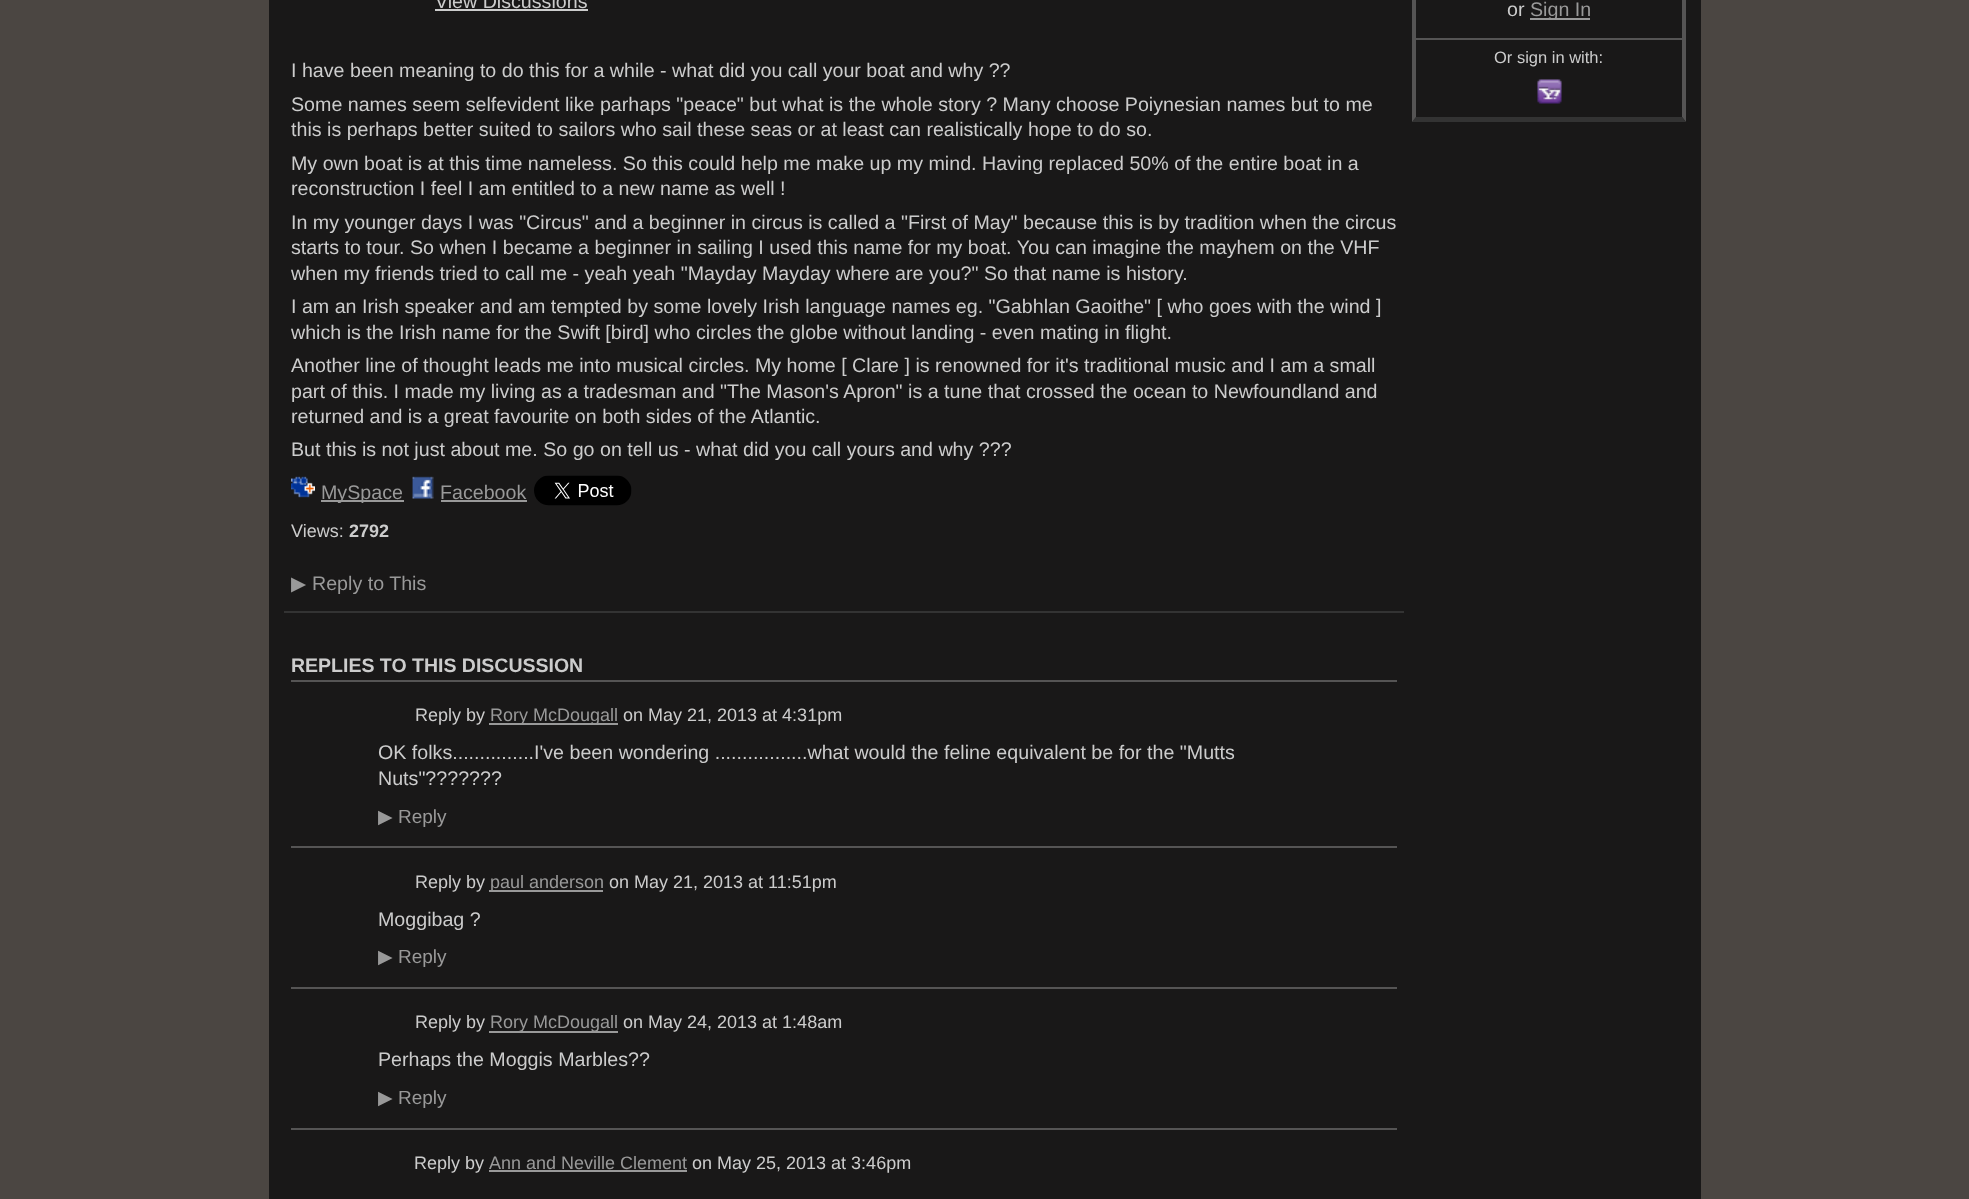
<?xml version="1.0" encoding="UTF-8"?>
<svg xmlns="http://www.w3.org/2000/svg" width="1969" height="1199">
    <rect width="100%" height="100%" fill="#4B4642"/>
    <rect x="269" y="0" width="1432" height="1199" fill="#191818"/>
    <text x="435" y="8" font-family="Liberation Sans" font-size="19.65" fill="#CCCCCC">View Discussions</text>
    <rect x="435" y="9" width="153" height="2" fill="#CCCCCC"/>
    <rect x="284" y="611" width="1120" height="2" fill="#333333"/>
    <text font-family="Liberation Sans" font-size="19.65" fill="#CCCCCC">
        <tspan x="291" y="77">I have been meaning to do this for a while - what did you call your boat and why ??</tspan>
        <tspan x="291" y="111">Some names seem selfevident like parhaps "peace" but what is the whole story ? Many choose Poiynesian names but to me</tspan>
        <tspan x="291" y="136">this is perhaps better suited to sailors who sail these seas or at least can realistically hope to do so.</tspan>
        <tspan x="291" y="170">My own boat is at this time nameless. So this could help me make up my mind. Having replaced 50% of the entire boat in a</tspan>
        <tspan x="291" y="195">reconstruction I feel I am entitled to a new name as well !</tspan>
        <tspan x="291" y="229">In my younger days I was "Circus" and a beginner in circus is called a "First of May" because this is by tradition when the circus</tspan>
        <tspan x="291" y="254">starts to tour. So when I became a beginner in sailing I used this name for my boat. You can imagine the mayhem on the VHF</tspan>
        <tspan x="291" y="280">when my friends tried to call me - yeah yeah "Mayday Mayday where are you?" So that name is history.</tspan>
        <tspan x="291" y="313">I am an Irish speaker and am tempted by some lovely Irish language names eg. "Gabhlan Gaoithe" [ who goes with the wind ]</tspan>
        <tspan x="291" y="339">which is the Irish name for the Swift [bird] who circles the globe without landing - even mating in flight.</tspan>
        <tspan x="291" y="372">Another line of thought leads me into musical circles. My home [ Clare ] is renowned for it's traditional music and I am a small</tspan>
        <tspan x="291" y="398">part of this. I made my living as a tradesman and "The Mason's Apron" is a tune that crossed the ocean to Newfoundland and</tspan>
        <tspan x="291" y="423">returned and is a great favourite on both sides of the Atlantic.</tspan>
        <tspan x="291" y="456">But this is not just about me. So go on tell us - what did you call yours and why ???</tspan>
    </text>
    <image x="291" y="476" width="24" height="22" href="img_01.png"/>
    <rect x="321" y="500" width="83" height="2" fill="#999999"/>
    <text x="321" y="499" font-family="Liberation Sans" font-size="19.65" fill="#999999">MySpace</text>
    <image x="412" y="476" width="22" height="23" href="img_02.png"/>
    <text x="440" y="499" font-family="Liberation Sans" font-size="19.65" fill="#999999">Facebook</text>
    <rect x="441" y="500" width="86" height="2" fill="#999999"/>
    <image x="534" y="475" width="98" height="31" href="img_03.png"/>
    <text x="291" y="537" font-family="Liberation Sans" font-size="18" fill="#CCCCCC">Views:</text>
    <text x="349" y="537" font-family="Liberation Sans" font-size="18" font-weight="700" fill="#CCCCCC">2792</text>
    <text x="291" y="590" font-family="DejaVu Sans" font-size="19.65" fill="#999999">▶</text>
    <text x="312" y="590" font-family="Liberation Sans" font-size="19.65" fill="#999999">Reply to This</text>
    <text x="291" y="672" font-family="Liberation Sans" font-size="19.5" font-weight="700" fill="#CCCCCC">REPLIES TO THIS DISCUSSION</text>
    <rect x="291" y="680" width="1106" height="2" fill="#555454"/>
    <text x="415" y="721" font-family="Liberation Sans" font-size="18" fill="#CCCCCC">Reply by</text>
    <rect x="489" y="723" width="129" height="2" fill="#999999"/>
    <text x="490" y="721" font-family="Liberation Sans" font-size="18" fill="#999999">Rory McDougall</text>
    <text x="623" y="721" font-family="Liberation Sans" font-size="18" fill="#CCCCCC">on May 21, 2013 at 4:31pm</text>
    <text font-family="Liberation Sans" font-size="19.65" fill="#CCCCCC">
        <tspan x="378" y="759">OK folks...............I've been wondering .................what would the feline equivalent be for the "Mutts</tspan>
        <tspan x="378" y="785">Nuts"???????</tspan>
    </text>
    <text x="378" y="823" font-family="DejaVu Sans" font-size="19" fill="#999999">▶</text>
    <text x="398" y="823" font-family="Liberation Sans" font-size="19" fill="#999999">Reply</text>
    <rect x="291" y="846" width="1106" height="2" fill="#555454"/>
    <text x="415" y="888" font-family="Liberation Sans" font-size="18" fill="#CCCCCC">Reply by</text>
    <rect x="489" y="890" width="114" height="2" fill="#999999"/>
    <text x="490" y="888" font-family="Liberation Sans" font-size="18" fill="#999999">paul anderson</text>
    <text x="609" y="888" font-family="Liberation Sans" font-size="18" fill="#CCCCCC">on May 21, 2013 at 11:51pm</text>
    <text x="378" y="926" font-family="Liberation Sans" font-size="19.65" fill="#CCCCCC">Moggibag ?</text>
    <text x="378" y="963" font-family="DejaVu Sans" font-size="19" fill="#999999">▶</text>
    <text x="398" y="963" font-family="Liberation Sans" font-size="19" fill="#999999">Reply</text>
    <rect x="291" y="987" width="1106" height="2" fill="#555454"/>
    <text x="415" y="1028" font-family="Liberation Sans" font-size="18" fill="#CCCCCC">Reply by</text>
    <rect x="489" y="1031" width="129" height="2" fill="#999999"/>
    <text x="490" y="1028" font-family="Liberation Sans" font-size="18" fill="#999999">Rory McDougall</text>
    <text x="623" y="1028" font-family="Liberation Sans" font-size="18" fill="#CCCCCC">on May 24, 2013 at 1:48am</text>
    <text x="378" y="1066" font-family="Liberation Sans" font-size="19.65" fill="#CCCCCC">Perhaps the Moggis Marbles??</text>
    <text x="378" y="1104" font-family="DejaVu Sans" font-size="19" fill="#999999">▶</text>
    <text x="398" y="1104" font-family="Liberation Sans" font-size="19" fill="#999999">Reply</text>
    <rect x="291" y="1128" width="1106" height="2" fill="#555454"/>
    <text x="414" y="1169" font-family="Liberation Sans" font-size="18" fill="#CCCCCC">Reply by</text>
    <text x="489" y="1169" font-family="Liberation Sans" font-size="18" fill="#999999">Ann and Neville Clement</text>
    <rect x="489" y="1170" width="198" height="2" fill="#999999"/>
    <text x="692" y="1169" font-family="Liberation Sans" font-size="18" fill="#CCCCCC">on May 25, 2013 at 3:46pm</text>
    <path d="M 1686 -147 V 122 L 1682 117 V -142 Z" fill="#555454"/>
    <path d="M 1686 122 H 1412 L 1416 117 H 1682 Z" fill="#333333"/>
    <path d="M 1412 122 V -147 L 1416 -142 V 117 Z" fill="#555454"/>
    <text x="1507" y="16" font-family="Liberation Sans" font-size="19.65" fill="#CCCCCC">or</text>
    <rect x="1530" y="18" width="60" height="2" fill="#999999"/>
    <text x="1530" y="16" font-family="Liberation Sans" font-size="19.65" fill="#999999">Sign In</text>
    <rect x="1416" y="38" width="266" height="2" fill="#555454"/>
    <text x="1494" y="63" font-family="Liberation Sans" font-size="16.5" fill="#CCCCCC">Or sign in with:</text>
    <image x="1537" y="79" width="25" height="25" href="img_04.png"/>
</svg>
